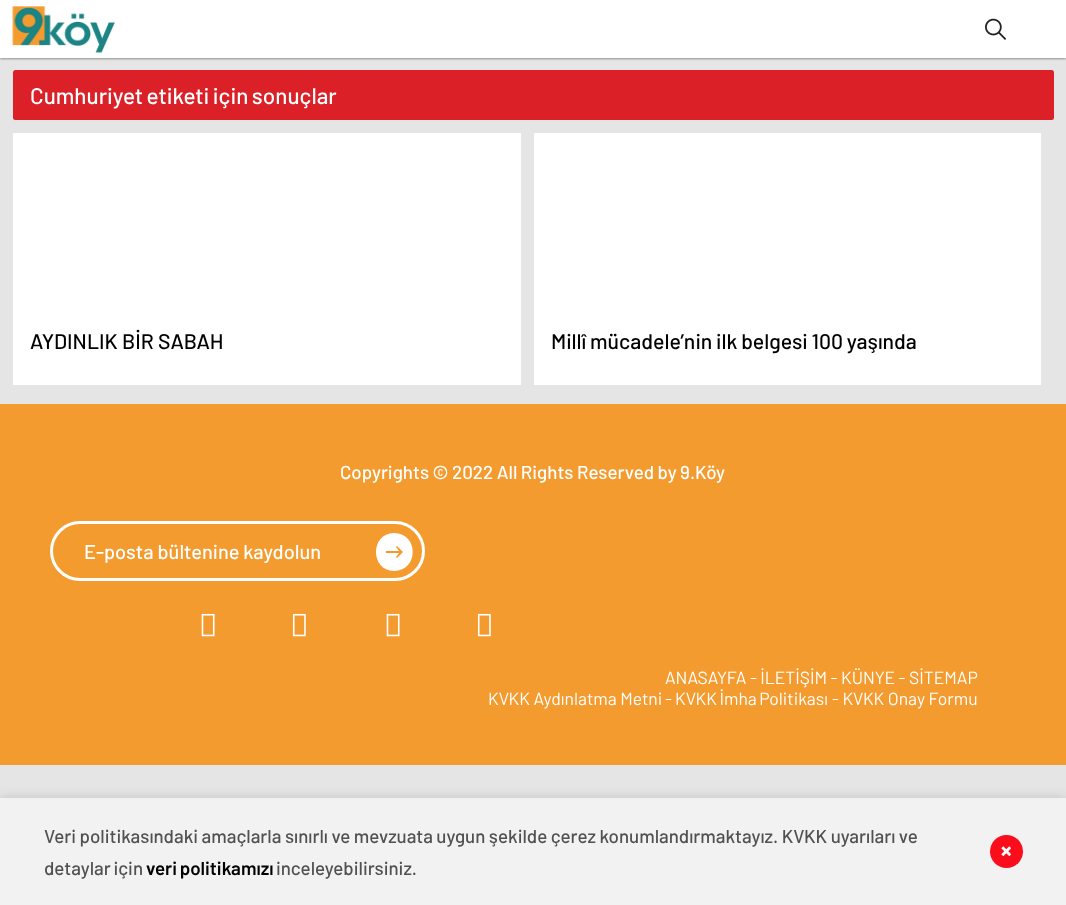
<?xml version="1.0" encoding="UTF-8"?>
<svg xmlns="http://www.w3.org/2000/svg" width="1066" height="905">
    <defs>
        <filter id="blur1" x="-50%" y="-200%" width="200%" height="500%"><feGaussianBlur stdDeviation="1"/></filter>
        <filter id="blur2" x="-50%" y="-200%" width="200%" height="500%"><feGaussianBlur stdDeviation="6"/></filter>
    </defs>
    <rect width="100%" height="100%" fill="#E5E5E5"/>
    <rect x="0" y="1" width="1066" height="58" fill="#000000" fill-opacity="0.37" filter="url(#blur1)"/>
    <rect x="0" y="0" width="1066" height="58" fill="#FFFFFF"/>
    <image x="12" y="6" width="103" height="47" href="img_01.png"/>
    <image x="985" y="18" width="21" height="22" href="img_02.png"/>
    <rect x="13" y="70" width="1041" height="50" rx="2.5" fill="#DB2027"/>
    <text x="30" y="104" word-spacing="-1" font-family="Barlow" font-size="22.5" font-weight="500" fill="#FFFFFF">Cumhuriyet etiketi için sonuçlar</text>
    <rect x="13" y="133" width="508" height="252" fill="#FFFFFF"/>
    <text x="30" y="349" font-family="Barlow" font-size="21.25" font-weight="500" fill="#000000">AYDINLIK BİR SABAH</text>
    <rect x="534" y="133" width="507" height="252" fill="#FFFFFF"/>
    <text x="551" y="349" word-spacing="-0.5" font-family="Barlow" font-size="21.25" font-weight="500" fill="#000000">Millî mücadele’nin ilk belgesi 100 yaşında</text>
    <rect x="0" y="404" width="1066" height="361" fill="#F49B2F"/>
    <text x="340" y="479" word-spacing="-0.25" font-family="Barlow" font-size="18.75" font-weight="500" fill="#FFFFFF">Copyrights © 2022 All Rights Reserved by 9.Köy</text>
    <rect x="51.5" y="522.5" width="372" height="57" rx="28.5" fill="none" stroke="#FFFFFF" stroke-width="3"/>
    <text x="84" y="559" font-family="Barlow" font-size="20" font-weight="500" fill="#FFFFFF">E-posta bültenine kaydolun</text>
    <path d="M 394 571 C 370 571 370 533 394 533 C 419 533 419 571 394 571 Z M 386 551 V 553 H 399 L 396 557 L 397 558 L 403 552 L 397 546 L 396 547 L 399 551 Z" fill="#FFFFFF"/>
    <image x="201" y="613" width="14" height="24" href="img_03.png"/>
    <image x="292" y="613" width="14" height="24" href="img_04.png"/>
    <image x="386" y="613" width="14" height="24" href="img_03.png"/>
    <image x="477" y="613" width="14" height="24" href="img_04.png"/>
    <text x="665" y="684" font-family="Barlow" font-size="17.5" fill="#FFFFFF">ANASAYFA - İLETİŞİM - KÜNYE - SİTEMAP</text>
    <text x="488" y="705" font-family="Barlow" font-size="17.5" fill="#FFFFFF">KVKK Aydınlatma Metni</text>
    <text x="665" y="705" font-family="Barlow" font-size="17.5" fill="#FFFFFF">-</text>
    <text x="675" y="705" word-spacing="-1" font-family="Barlow" font-size="17.5" fill="#FFFFFF">KVKK İmha Politikası</text>
    <text x="832" y="705" font-family="Barlow" font-size="17.5" fill="#FFFFFF">- KVKK Onay Formu</text>
    <rect x="0" y="798" width="1066" height="107" fill="#222222" fill-opacity="0.16" filter="url(#blur2)"/>
    <rect x="0" y="798" width="1066" height="107" fill="#F2F2F2"/>
    <text font-family="Barlow" font-size="18.75" font-weight="500" fill="#515151">
        <tspan x="44" y="843" word-spacing="-0.25">Veri politikasındaki amaçlarla sınırlı ve mevzuata uygun şekilde çerez konumlandırmaktayız. KVKK uyarıları ve</tspan>
        <tspan x="44" y="875" word-spacing="-1">detaylar için</tspan>
    </text>
    <text x="146" y="875" word-spacing="-1" font-family="Barlow" font-size="18.75" font-weight="600" fill="#000000">veri politikamızı</text>
    <text x="276" y="875" font-family="Barlow" font-size="18.75" font-weight="500" fill="#515151">inceleyebilirsiniz.</text>
    <circle cx="1006.5" cy="851.5" r="16.5" fill="#FB0D1B"/>
    <image x="1001" y="846" width="10" height="10" href="img_05.png"/>
</svg>
